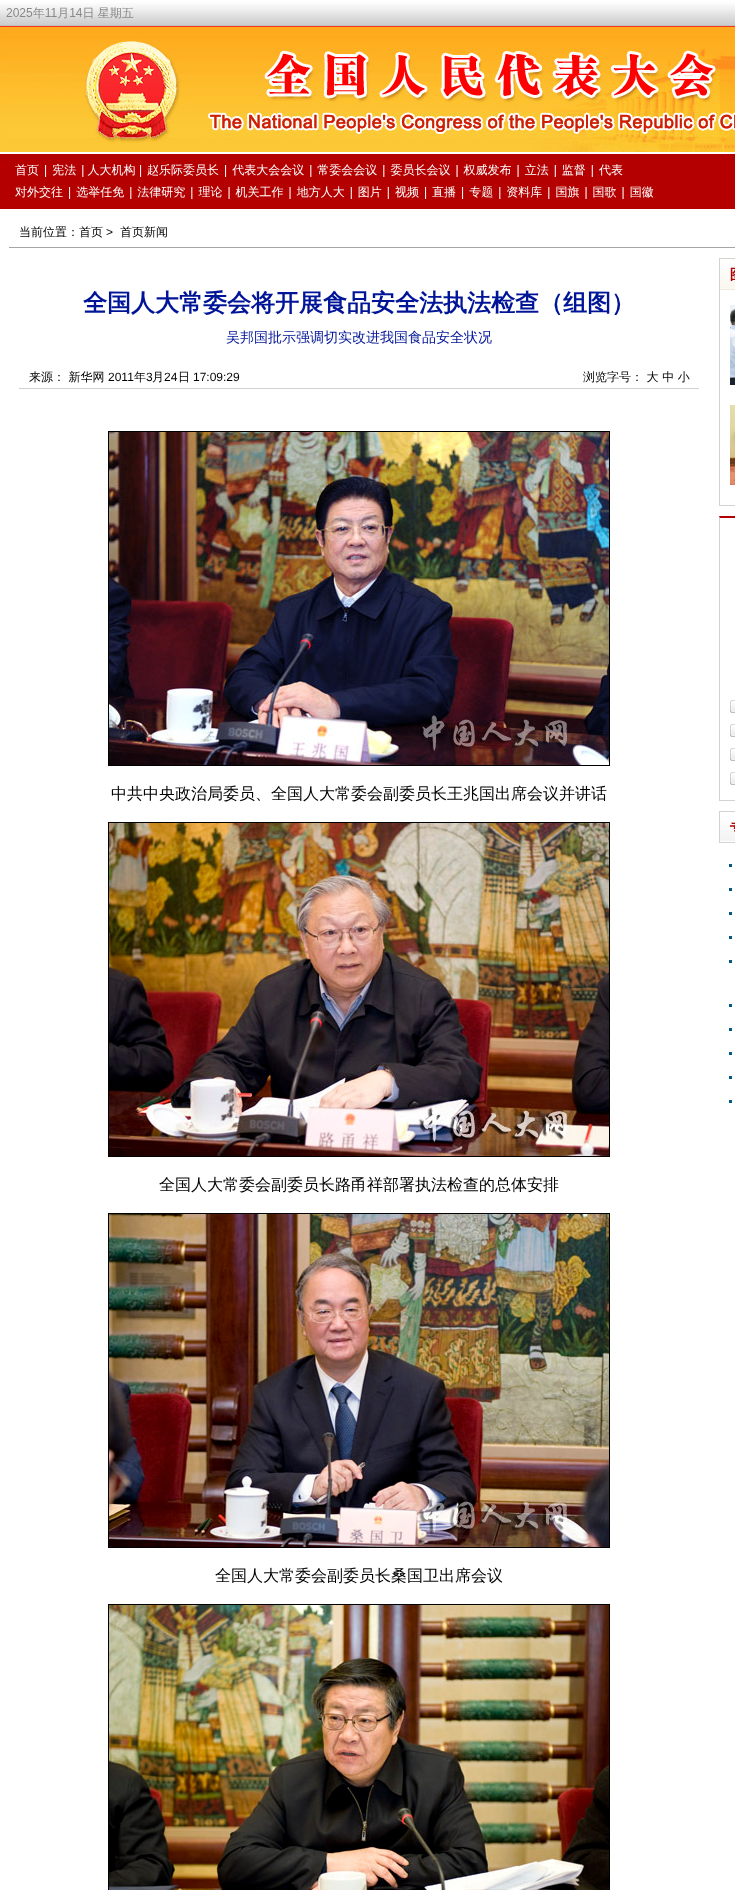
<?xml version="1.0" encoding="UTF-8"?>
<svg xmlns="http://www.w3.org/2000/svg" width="735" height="1890">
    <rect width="100%" height="100%" fill="#FFFFFF"/>
    <image x="0" y="0" width="735" height="209" href="img_01.png"/>
    <rect x="9" y="247" width="726" height="1" fill="#A6A6A6"/>
    <text x="19" y="236" font-family="WenQuanYi Zen Hei" font-size="12" font-weight="500" fill="#000000">当前位置：首页</text>
    <text x="106" y="236" font-family="Liberation Sans" font-size="12" fill="#000000">&gt;</text>
    <text x="120" y="236" font-family="WenQuanYi Zen Hei" font-size="12" font-weight="500" fill="#000000">首页新闻</text>
    <text x="83" y="311" font-family="WenQuanYi Zen Hei" font-size="24" font-weight="700" fill="#001497">全国人大常委会将开展食品安全法执法检查（组图）</text>
    <text x="226" y="342" font-family="WenQuanYi Zen Hei" font-size="14" font-weight="500" fill="#001497">吴邦国批示强调切实改进我国食品安全状况</text>
    <rect x="19" y="388" width="680" height="1" fill="#D1D1D1"/>
    <text x="29" y="381" font-family="WenQuanYi Zen Hei" font-size="12" font-weight="500" fill="#000000">来源： 新华网</text>
    <text x="108" y="381" font-family="Liberation Sans" font-size="12" fill="#000000">2011</text>
    <text x="134" y="381" font-family="WenQuanYi Zen Hei" font-size="12" font-weight="500" fill="#000000">年</text>
    <text x="146" y="381" font-family="Liberation Sans" font-size="12" fill="#000000">3</text>
    <text x="152" y="381" font-family="WenQuanYi Zen Hei" font-size="12" font-weight="500" fill="#000000">月</text>
    <text x="164" y="381" font-family="Liberation Sans" font-size="12" fill="#000000">24</text>
    <text x="178" y="381" font-family="WenQuanYi Zen Hei" font-size="12" font-weight="500" fill="#000000">日</text>
    <text x="193" y="381" font-family="Liberation Sans" font-size="12" fill="#000000">17:09:29</text>
    <text x="583" y="381" font-family="WenQuanYi Zen Hei" font-size="12" font-weight="500" fill="#000000">浏览字号： 大 中 小</text>
    <rect x="108.5" y="431.5" width="501" height="334" fill="none" stroke="#000000"/>
    <image x="109" y="432" width="500" height="333" href="img_02.png"/>
    <text x="111" y="799" font-family="WenQuanYi Zen Hei" font-size="16" font-weight="500" fill="#000000">中共中央政治局委员、全国人大常委会副委员长王兆国出席会议并讲话</text>
    <rect x="108.5" y="822.5" width="501" height="334" fill="none" stroke="#000000"/>
    <image x="109" y="823" width="500" height="333" href="img_03.png"/>
    <text x="159" y="1190" font-family="WenQuanYi Zen Hei" font-size="16" font-weight="500" fill="#000000">全国人大常委会副委员长路甬祥部署执法检查的总体安排</text>
    <rect x="108.5" y="1213.5" width="501" height="334" fill="none" stroke="#000000"/>
    <image x="109" y="1214" width="500" height="333" href="img_04.png"/>
    <text x="215" y="1581" font-family="WenQuanYi Zen Hei" font-size="16" font-weight="500" fill="#000000">全国人大常委会副委员长桑国卫出席会议</text>
    <rect x="108.5" y="1604.5" width="501" height="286" fill="none" stroke="#000000"/>
    <image x="109" y="1605" width="500" height="285" href="img_05.png"/>
    <image x="719" y="258" width="16" height="845" href="img_06.png"/>
</svg>
